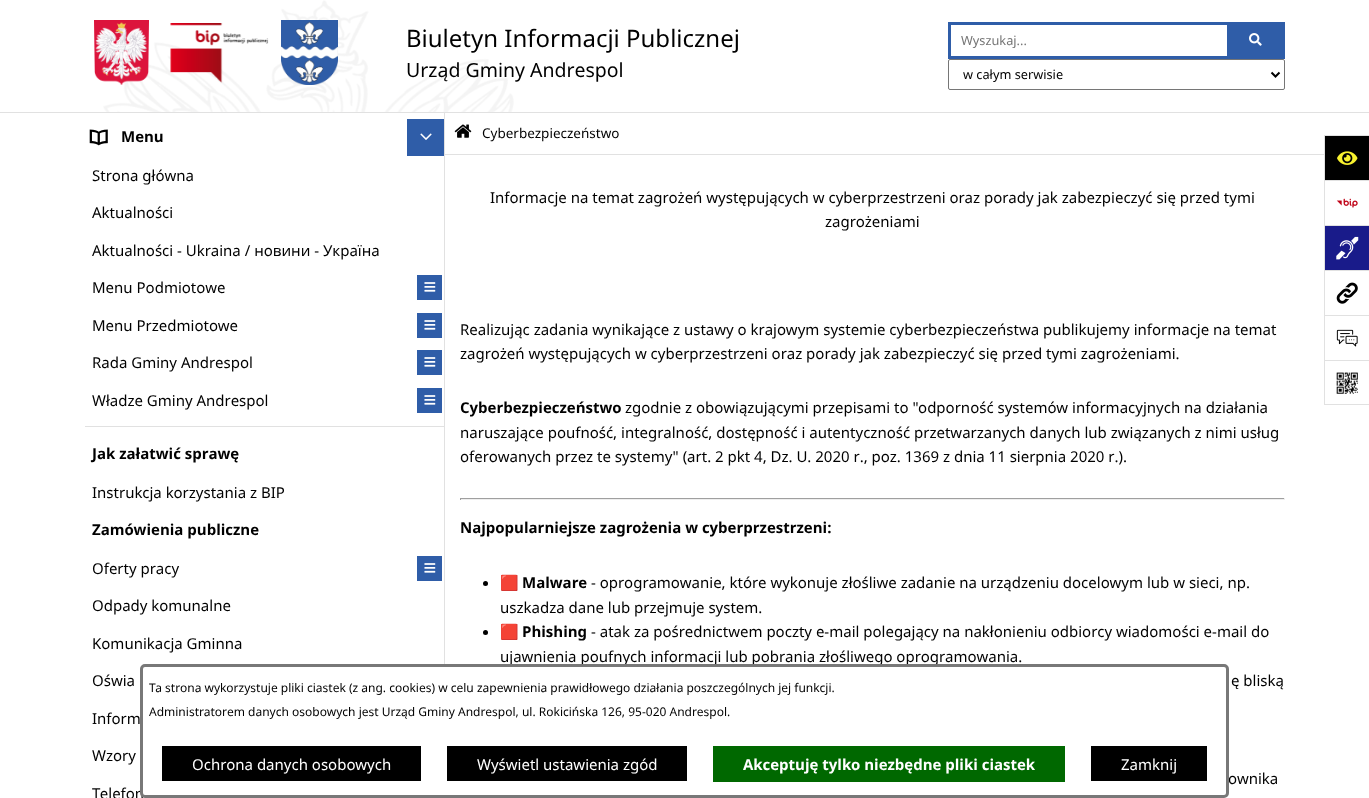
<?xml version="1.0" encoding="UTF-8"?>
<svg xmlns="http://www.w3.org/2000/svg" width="1369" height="798">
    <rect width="100%" height="100%" fill="#FFFFFF"/>
    <rect x="85" y="426" width="360" height="1" fill="#E1E1E1"/>
    <rect x="444" y="112" width="1" height="552" fill="#E1E1E1"/>
    <rect x="0" y="112" width="1369" height="1" fill="#E1E1E1"/>
    <image x="103" y="0" width="411" height="112" href="img_01.png"/>
    <image x="94" y="20" width="55" height="65" href="img_02.png"/>
    <image x="170" y="23" width="99" height="60" href="img_03.png"/>
    <image x="281" y="20" width="57" height="65" href="img_04.png"/>
    <text x="406" y="47" font-family="Noto Sans" font-size="24" fill="#000000">Biuletyn Informacji Publicznej</text>
    <text x="406" y="77" font-family="Noto Sans" font-size="19.5" fill="#000000">Urząd Gminy Andrespol</text>
    <rect x="949.5" y="23.5" width="279" height="34" fill="none" stroke="#2F5DA8" stroke-width="3"/>
    <text x="961" y="45" font-family="Noto Sans" font-size="12.75" fill="#757575">Wyszukaj...</text>
    <rect x="1230" y="22" width="55" height="37" fill="#2F5DA8"/>
    <image x="1249" y="33" width="13" height="13" href="img_05.png"/>
    <rect x="948.5" y="59.5" width="336" height="30" rx="1.5" fill="none" stroke="#767676"/>
    <path d="M 1271.5 72.5 L 1275.5 76.5 L 1279.5 72.5" fill="none" stroke="#000000" stroke-width="2"/>
    <text x="963" y="79" font-family="Noto Sans" font-size="12.75" fill="#000000">w całym serwisie</text>
    <image x="89" y="129" width="19" height="17" href="img_06.png"/>
    <text x="121" y="142" font-family="Noto Sans" font-size="15" font-weight="700" fill="#000000">Menu</text>
    <rect x="407" y="119" width="37" height="37" fill="#2F5DA8"/>
    <image x="420" y="133" width="12" height="7" href="img_07.png"/>
    <text x="92" y="181" font-family="Noto Sans" font-size="15" fill="#000000">Strona główna</text>
    <text x="92" y="218" font-family="Noto Sans" font-size="15" fill="#000000">Aktualności</text>
    <text x="92" y="256" font-family="Noto Sans" font-size="15" fill="#000000">Aktualności - Ukraina / новини - Україна</text>
    <text x="92" y="293" font-family="Noto Sans" font-size="15" fill="#000000">Menu Podmiotowe</text>
    <rect x="417" y="275" width="25" height="25" fill="#2F5DA8"/>
    <image x="424" y="282" width="12" height="10" href="img_08.png"/>
    <text x="92" y="331" font-family="Noto Sans" font-size="15" fill="#000000">Menu Przedmiotowe</text>
    <rect x="417" y="313" width="25" height="25" fill="#2F5DA8"/>
    <image x="424" y="320" width="12" height="10" href="img_08.png"/>
    <text x="92" y="368" font-family="Noto Sans" font-size="15" fill="#000000">Rada Gminy Andrespol</text>
    <rect x="417" y="350" width="25" height="25" fill="#2F5DA8"/>
    <image x="424" y="357" width="12" height="10" href="img_08.png"/>
    <text x="92" y="406" font-family="Noto Sans" font-size="15" fill="#000000">Władze Gminy Andrespol</text>
    <rect x="417" y="388" width="25" height="25" fill="#2F5DA8"/>
    <image x="424" y="395" width="12" height="10" href="img_08.png"/>
    <text x="92" y="459" font-family="Noto Sans" font-size="15" font-weight="700" fill="#000000">Jak załatwić sprawę</text>
    <text x="92" y="498" font-family="Noto Sans" font-size="15" fill="#000000">Instrukcja korzystania z BIP</text>
    <text x="92" y="535" font-family="Noto Sans" font-size="15" font-weight="700" fill="#000000">Zamówienia publiczne</text>
    <text x="92" y="574" font-family="Noto Sans" font-size="15" fill="#000000">Oferty pracy</text>
    <rect x="417" y="556" width="25" height="25" fill="#2F5DA8"/>
    <image x="424" y="563" width="12" height="10" href="img_08.png"/>
    <text x="92" y="611" font-family="Noto Sans" font-size="15" fill="#000000">Odpady komunalne</text>
    <text x="92" y="649" font-family="Noto Sans" font-size="15" fill="#000000">Komunikacja Gminna</text>
    <text x="92" y="686" font-family="Noto Sans" font-size="15" fill="#000000">Oświa</text>
    <text x="92" y="724" font-family="Noto Sans" font-size="15" fill="#000000">Inform</text>
    <text x="92" y="761" font-family="Noto Sans" font-size="15" fill="#000000">Wzory</text>
    <text x="92" y="799" font-family="Noto Sans" font-size="15" fill="#000000">Telefon</text>
    <rect x="1325" y="136" width="44" height="44" fill="#000000"/>
    <rect x="1324" y="135" width="45" height="1" fill="#E1E1E1"/>
    <rect x="1324" y="135" width="1" height="45" fill="#E1E1E1"/>
    <image x="1337" y="151" width="21" height="14" href="img_09.png"/>
    <rect x="1324" y="180" width="45" height="1" fill="#E1E1E1"/>
    <rect x="1324" y="180" width="1" height="45" fill="#E1E1E1"/>
    <image x="1336" y="198" width="22" height="10" href="img_10.png"/>
    <rect x="1325" y="226" width="44" height="44" fill="#191B8A"/>
    <rect x="1324" y="225" width="45" height="1" fill="#E1E1E1"/>
    <rect x="1324" y="225" width="1" height="45" fill="#E1E1E1"/>
    <image x="1336" y="236" width="23" height="24" href="img_11.png"/>
    <rect x="1324" y="270" width="45" height="1" fill="#E1E1E1"/>
    <rect x="1324" y="270" width="1" height="45" fill="#E1E1E1"/>
    <image x="1336" y="282" width="22" height="22" href="img_12.png"/>
    <rect x="1324" y="315" width="45" height="1" fill="#E1E1E1"/>
    <rect x="1324" y="315" width="1" height="45" fill="#E1E1E1"/>
    <image x="1336" y="329" width="22" height="18" href="img_13.png"/>
    <rect x="1324" y="360" width="45" height="1" fill="#E1E1E1"/>
    <rect x="1324" y="404" width="45" height="1" fill="#E1E1E1"/>
    <rect x="1324" y="360" width="1" height="45" fill="#E1E1E1"/>
    <image x="1336" y="372" width="22" height="22" href="img_14.png"/>
    <rect x="445" y="154" width="879" height="1" fill="#E1E1E1"/>
    <image x="454" y="124" width="18" height="14" href="img_15.png"/>
    <text x="482" y="138" font-family="Noto Sans" font-size="13.5" fill="#000000">Cyberbezpieczeństwo</text>
    <text x="490" y="203" font-family="Noto Sans" font-size="15" fill="#000000">Informacje na temat zagrożeń występujących w cyberprzestrzeni oraz porady jak zabezpieczyć się przed tymi</text>
    <text x="825" y="227" font-family="Noto Sans" font-size="15" fill="#000000">zagrożeniami</text>
    <text font-family="Noto Sans" font-size="15" fill="#000000">
        <tspan x="460" y="335">Realizując zadania wynikające z ustawy o krajowym systemie cyberbezpieczeństwa publikujemy informacje na temat</tspan>
        <tspan x="460" y="359">zagrożeń występujących w cyberprzestrzeni oraz porady jak zabezpieczyć się przed tymi zagrożeniami.</tspan>
    </text>
    <text x="460" y="413" font-family="Noto Sans" font-size="15" font-weight="700" fill="#000000">Cyberbezpieczeństwo</text>
    <text x="625" y="413" font-family="Noto Sans" font-size="15" fill="#000000">zgodnie z obowiązującymi przepisami to "odporność systemów informacyjnych na działania</text>
    <text font-family="Noto Sans" font-size="15" fill="#000000">
        <tspan x="460" y="438">naruszające poufność, integralność, dostępność i autentyczność przetwarzanych danych lub związanych z nimi usług</tspan>
        <tspan x="460" y="462">oferowanych przez te systemy" (art. 2 pkt 4, Dz. U. 2020 r., poz. 1369 z dnia 11 sierpnia 2020 r.).</tspan>
    </text>
    <rect x="460" y="498" width="825" height="1" fill="#9F9F9F"/>
    <rect x="1284" y="498" width="1" height="2" fill="#EEEEEE"/>
    <rect x="460" y="499" width="825" height="1" fill="#EEEEEE"/>
    <rect x="460" y="498" width="1" height="2" fill="#9F9F9F"/>
    <text x="460" y="533" font-family="Noto Sans" font-size="15" font-weight="700" fill="#000000">Najpopularniejsze zagrożenia w cyberprzestrzeni:</text>
    <circle cx="485.5" cy="583.5" r="2.5" fill="#000000"/>
    <text x="500" y="588" font-family="Noto Color Emoji" font-size="15" fill="#000000">🟥</text>
    <text x="522" y="588" font-family="Noto Sans" font-size="15" font-weight="700" fill="#000000">Malware</text>
    <text x="591" y="588" font-family="Noto Sans" font-size="15" fill="#000000">- oprogramowanie, które wykonuje złośliwe zadanie na urządzeniu docelowym lub w sieci, np.</text>
    <text x="500" y="613" font-family="Noto Sans" font-size="15" fill="#000000">uszkadza dane lub przejmuje system.</text>
    <circle cx="485.5" cy="632.5" r="2.5" fill="#000000"/>
    <text x="500" y="637" font-family="Noto Color Emoji" font-size="15" fill="#000000">🟥</text>
    <text x="522" y="637" font-family="Noto Sans" font-size="15" font-weight="700" fill="#000000">Phishing</text>
    <text x="591" y="637" font-family="Noto Sans" font-size="15" fill="#000000">- atak za pośrednictwem poczty e-mail polegający na nakłonieniu odbiorcy wiadomości e-mail do</text>
    <text x="500" y="662" font-family="Noto Sans" font-size="15" fill="#000000">ujawnienia poufnych informacji lub pobrania złośliwego oprogramowania.</text>
    <text x="1231" y="686" font-family="Noto Sans" font-size="15" fill="#000000">ę bliską</text>
    <text x="1228" y="784" font-family="Noto Sans" font-size="15" fill="#000000">ownika</text>
    <rect x="141.5" y="665.5" width="1086" height="131" rx="3.5" fill="#FFFFFF" stroke="#787878" stroke-width="3"/>
    <text x="149" y="692" font-family="Noto Sans" font-size="12" fill="#000000">Ta strona wykorzystuje pliki ciastek (z ang. cookies) w celu zapewnienia prawidłowego działania poszczególnych jej funkcji.</text>
    <text x="149" y="716" font-family="Noto Sans" font-size="12" fill="#000000">Administratorem danych osobowych jest Urząd Gminy Andrespol, ul. Rokicińska 126, 95-020 Andrespol.</text>
    <rect x="162" y="746" width="259" height="35" fill="#000000"/>
    <text x="192" y="770" font-family="Noto Sans" font-size="15" fill="#FFFFFF">Ochrona danych osobowych</text>
    <rect x="447" y="746" width="240" height="35" fill="#000000"/>
    <text x="477" y="770" font-family="Noto Sans" font-size="15" fill="#FFFFFF">Wyświetl ustawienia zgód</text>
    <rect x="713" y="746" width="352" height="36" fill="#006800"/>
    <text x="743" y="770" font-family="Noto Sans" font-size="15" font-weight="700" fill="#FFFFFF">Akceptuję tylko niezbędne pliki ciastek</text>
    <rect x="1091" y="746" width="116" height="35" fill="#000000"/>
    <text x="1121" y="770" font-family="Noto Sans" font-size="15" fill="#FFFFFF">Zamknij</text>
</svg>
